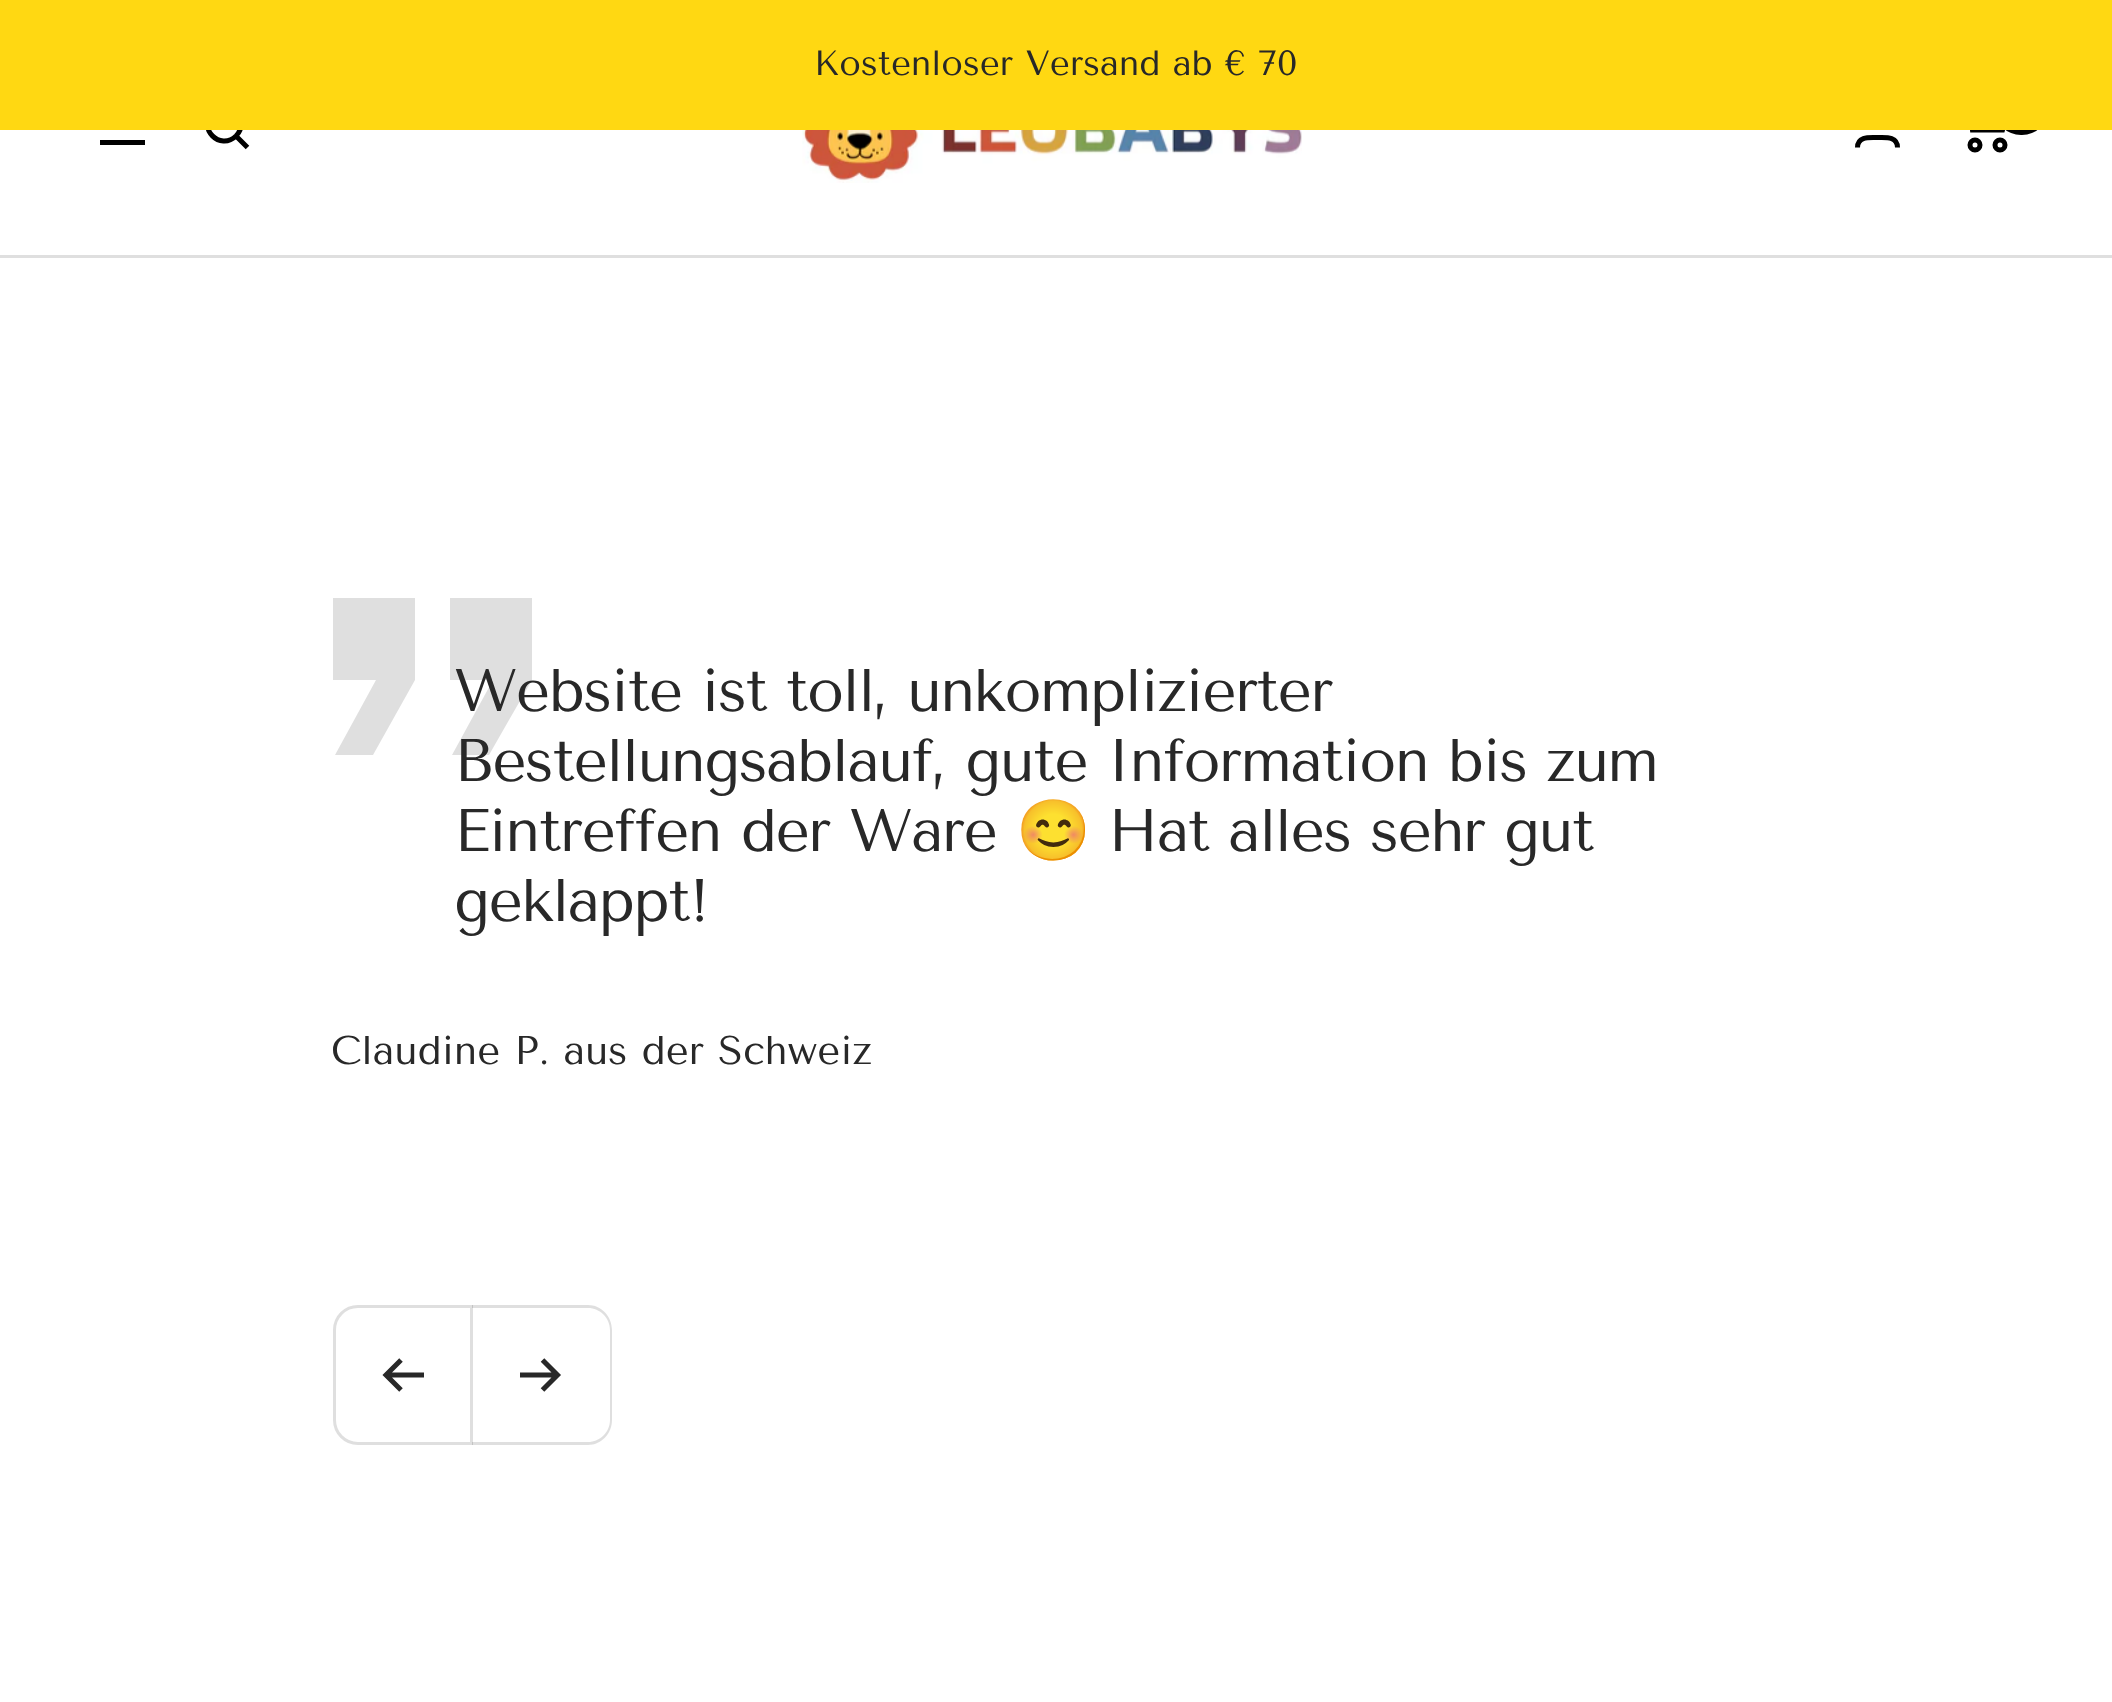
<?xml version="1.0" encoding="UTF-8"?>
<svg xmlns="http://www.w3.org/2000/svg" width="2112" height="1702">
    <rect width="100%" height="100%" fill="#FFFFFF"/>
    <path d="M 100 112.5 H 145 M 100 142.5 H 145 Z M 100 127.5 H 145 Z" fill="none" stroke="#000000" stroke-width="5"/>
    <path d="M 236 136 C 251.5 120 228 97 212.5 112.5 C 197 128 220 151.5 236 136 Z M 236 136 L 247.5 147.5" fill="none" stroke="#000000" stroke-width="5"/>
    <path d="M 1960 105 H 1970 L 1972.5 130 H 2002.5 L 2007.5 112.5 H 1980" fill="none" stroke="#000000" stroke-width="5"/>
    <rect x="1995" y="83" width="53" height="52" rx="26" fill="#000000"/>
    <rect x="0" y="0" width="2112" height="130" fill="#FFD812"/>
    <text x="814" y="75" font-family="Tenor Sans" font-size="35" fill="#282828">Kostenloser Versand ab € 70</text>
    <path d="M 0 255 V 258 H 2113 V 3 H 2112 V 255 Z" fill="#DFDFDF"/>
    <image x="802" y="130" width="500" height="53" href="img_01.png"/>
    <path d="M 1857.5 147.5 C 1857.5 136 1869.5 137.5 1877.5 137.5 C 1885.5 137.5 1897.5 136 1897.5 147.5" fill="none" stroke="#000000" stroke-width="5"/>
    <circle cx="1975" cy="145" r="5" fill="none" stroke="#000000" stroke-width="5"/>
    <circle cx="2000" cy="145" r="5" fill="none" stroke="#000000" stroke-width="5"/>
    <text font-family="Tenor Sans" font-size="60" letter-spacing="-1.5" fill="#282828">
        <tspan x="454" y="711">Website ist toll, unkomplizierter</tspan>
        <tspan x="454" y="781">Bestellungsablauf, gute Information bis zum</tspan>
    </text>
    <path d="M 333 680 V 598 H 415 V 680 L 373 755 H 335 L 376 680 Z M 450 680 V 598 H 532 V 680 L 489 755 H 452 L 493 680 Z" fill="#282828" fill-opacity="0.15" fill-rule="evenodd"/>
    <text x="454" y="851" font-family="Tenor Sans" font-size="60" letter-spacing="-1.5" fill="#282828">Eintreffen der Ware</text>
    <text x="1016" y="851" font-family="Noto Color Emoji" font-size="60" letter-spacing="-1.5" fill="#282828">😊</text>
    <text x="1108" y="851" font-family="Tenor Sans" font-size="60" letter-spacing="-1.5" fill="#282828">Hat alles sehr gut</text>
    <text x="454" y="921" font-family="Tenor Sans" font-size="60" letter-spacing="-1.5" fill="#282828">geklappt!</text>
    <text x="331" y="1064" font-family="Tenor Sans" font-size="40" fill="#282828">Claudine P. aus der Schweiz</text>
    <path d="M 358 1306.5 H 471.5 V 1443.5 H 358 C 345 1443.5 334.5 1433 334.5 1420 V 1330 C 334.5 1317 345 1306.5 358 1306.5 Z" fill="none" stroke="#DFDFDF" stroke-width="3"/>
    <path d="M 424 1375 H 386 M 401 1360 L 386 1375 L 401 1390" fill="none" stroke="#282828" stroke-width="5"/>
    <path d="M 472 1305 H 588 C 601 1305 612 1316 612 1330 V 1420 C 612 1434 601 1445 588 1445 H 472 Z M 472 1308 H 588 C 600 1308 610 1318 610 1330 V 1420 C 610 1432 600 1442 588 1442 H 472 Z" fill="#282828" fill-opacity="0.15" fill-rule="evenodd"/>
    <path d="M 520 1375 H 557.5 M 542.5 1360 L 557.5 1375 L 542.5 1390" fill="none" stroke="#282828" stroke-width="5"/>
</svg>
